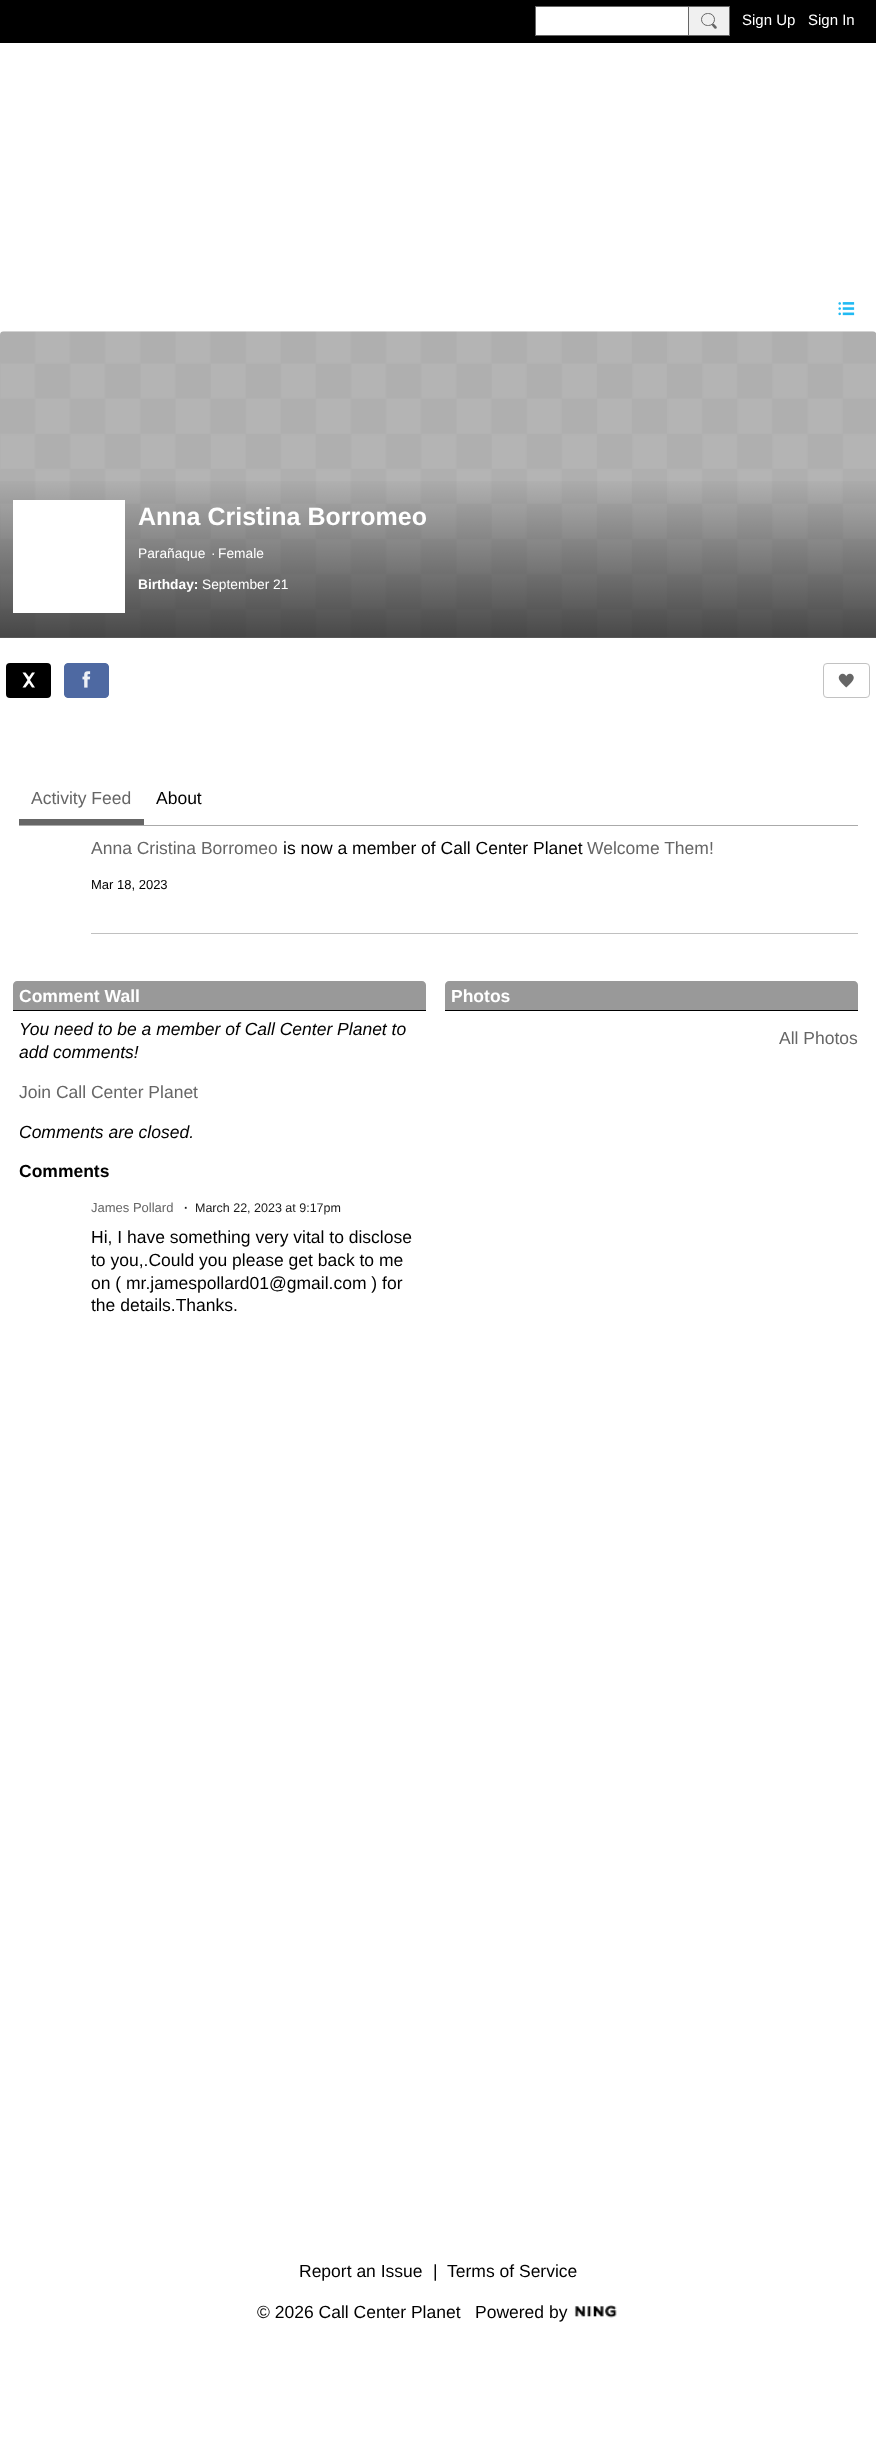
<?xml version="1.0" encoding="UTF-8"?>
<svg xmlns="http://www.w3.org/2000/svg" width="876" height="2447">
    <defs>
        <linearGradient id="g1" gradientUnits="userSpaceOnUse" x1="438" y1="475" x2="438" y2="638"><stop offset="0" stop-color="#000000" stop-opacity="0"/><stop offset="1" stop-color="#000000" stop-opacity="0.6"/></linearGradient>
    </defs>
    <rect width="100%" height="100%" fill="#FFFFFF"/>
    <rect x="0" y="0" width="876" height="43" fill="#000000"/>
    <rect x="535.5" y="6.5" width="153" height="29" fill="#FFFFFF" stroke="#666666"/>
    <rect x="688.5" y="6.5" width="41" height="29" fill="#FFFFFF" fill-opacity="0.94" stroke="#666666"/>
    <rect x="701.5" y="13.5" width="13" height="12" rx="6" fill="none" stroke="#666666"/>
    <path d="M 714 24 L 716 26 C 718 28 716 29.5 714.5 28.5 L 712 25.5 C 711 24.5 713 23 714 24 Z" fill="#666666"/>
    <text x="742" y="25" font-family="Liberation Sans" font-size="15" fill="#FFFFFF">Sign Up</text>
    <text x="808" y="25" font-family="Liberation Sans" font-size="15" fill="#FFFFFF">Sign In</text>
    <image x="838" y="302" width="17" height="14" href="img_01.png"/>
    <image x="0" y="331" width="876" height="307" href="img_02.png"/>
    <rect x="0" y="481" width="876" height="157" fill="url(#g1)"/>
    <rect x="13" y="500" width="112" height="113" fill="#FFFFFF"/>
    <text x="138" y="525" font-family="Liberation Sans" font-size="25" font-weight="700" fill="#FFFFFF">Anna Cristina Borromeo</text>
    <text x="138" y="558" font-family="Liberation Sans" font-size="13.75" fill="#FFFFFF">Parañaque</text>
    <text x="211" y="558" font-family="Liberation Sans" font-size="13.75" fill="#FFFFFF">·</text>
    <text x="218" y="558" font-family="Liberation Sans" font-size="13.75" fill="#FFFFFF">Female</text>
    <text x="138" y="589" font-family="Liberation Sans" font-size="13.75" font-weight="700" fill="#FFFFFF">Birthday:</text>
    <text x="202" y="589" font-family="Liberation Sans" font-size="13.75" fill="#FFFFFF">September 21</text>
    <rect x="6" y="663" width="45" height="35" rx="4" fill="#000000"/>
    <path d="M 22.5 672.5 L 27.5 680 L 22.5 687.5 H 25.5 L 29 683 L 32 687.5 H 35 L 30 680 L 35 672.5 H 32 L 29 677 L 25.5 672.5 Z" fill="#FFFFFF" fill-rule="evenodd"/>
    <image x="64" y="663" width="45" height="35" href="img_03.png"/>
    <rect x="823.5" y="663.5" width="46" height="34" rx="3.5" fill="none" stroke="#C2C2C2"/>
    <image x="838" y="673" width="16" height="15" href="img_04.png"/>
    <rect x="19" y="825" width="839" height="1" fill="#AAAAAA"/>
    <rect x="19" y="819" width="125" height="6" fill="#666666"/>
    <text x="31" y="804" font-family="Liberation Sans" font-size="17.5" fill="#666666">Activity Feed</text>
    <text x="156" y="804" font-family="Liberation Sans" font-size="17.5" fill="#000000">About</text>
    <rect x="91" y="933" width="767" height="1" fill="#C0C0C0"/>
    <text x="91" y="854" font-family="Liberation Sans" font-size="17.5" fill="#666666">Anna Cristina Borromeo</text>
    <text x="283" y="854" font-family="Liberation Sans" font-size="17.5" fill="#000000">is now a member of Call Center Planet</text>
    <text x="587" y="854" font-family="Liberation Sans" font-size="17.5" fill="#666666">Welcome Them!</text>
    <text x="91" y="889" font-family="Liberation Sans" font-size="13" fill="#000000">Mar 18, 2023</text>
    <path d="M 17 981 H 422 C 424 981 426 983 426 985 V 1010 H 13 V 985 C 13 983 15 981 17 981 Z" fill="#999999"/>
    <rect x="13" y="1010" width="413" height="1" fill="#000000"/>
    <text x="19" y="1002" font-family="Liberation Sans" font-size="17.5" font-weight="700" fill="#FFFFFF">Comment Wall</text>
    <text font-family="Liberation Sans" font-size="17.5" font-style="italic" fill="#000000">
        <tspan x="19" y="1035">You need to be a member of Call Center Planet to</tspan>
        <tspan x="19" y="1058">add comments!</tspan>
    </text>
    <text x="19" y="1098" font-family="Liberation Sans" font-size="17.5" fill="#666666">Join Call Center Planet</text>
    <text x="19" y="1138" font-family="Liberation Sans" font-size="17.5" font-style="italic" fill="#000000">Comments are closed.</text>
    <text x="19" y="1177" font-family="Liberation Sans" font-size="17.5" font-weight="700" fill="#000000">Comments</text>
    <text x="91" y="1212" font-family="Liberation Sans" font-size="13" fill="#666666">James Pollard</text>
    <text x="184" y="1212" font-family="Liberation Sans" font-size="12.5" font-weight="700" fill="#1A1A1A">·</text>
    <text x="195" y="1212" font-family="Liberation Sans" font-size="12.5" fill="#1A1A1A">March 22, 2023 at 9:17pm</text>
    <text font-family="Liberation Sans" font-size="17.5" fill="#000000">
        <tspan x="91" y="1243">Hi, I have something very vital to disclose</tspan>
        <tspan x="91" y="1266">to you,.Could you please get back to me</tspan>
        <tspan x="91" y="1289">on ( mr.jamespollard01@gmail.com ) for</tspan>
        <tspan x="91" y="1311">the details.Thanks.</tspan>
    </text>
    <path d="M 449 981 H 854 C 856 981 858 983 858 985 V 1010 H 445 V 985 C 445 983 447 981 449 981 Z" fill="#999999"/>
    <rect x="445" y="1010" width="413" height="1" fill="#000000"/>
    <text x="451" y="1002" font-family="Liberation Sans" font-size="17.5" font-weight="700" fill="#FFFFFF">Photos</text>
    <text x="779" y="1044" font-family="Liberation Sans" font-size="17.5" fill="#666666">All Photos</text>
    <text x="299" y="2277" font-family="Liberation Sans" font-size="17.5" fill="#000000">Report an Issue</text>
    <text x="433" y="2277" font-family="Liberation Sans" font-size="17.5" fill="#000000">|</text>
    <text x="447" y="2277" font-family="Liberation Sans" font-size="17.5" fill="#000000">Terms of Service</text>
    <text x="257" y="2318" font-family="Liberation Sans" font-size="17.5" fill="#000000">© 2026 Call Center Planet</text>
    <text x="475" y="2318" font-family="Liberation Sans" font-size="17.5" fill="#000000">Powered by</text>
    <image x="574" y="2305" width="43" height="13" href="img_05.png"/>
</svg>
